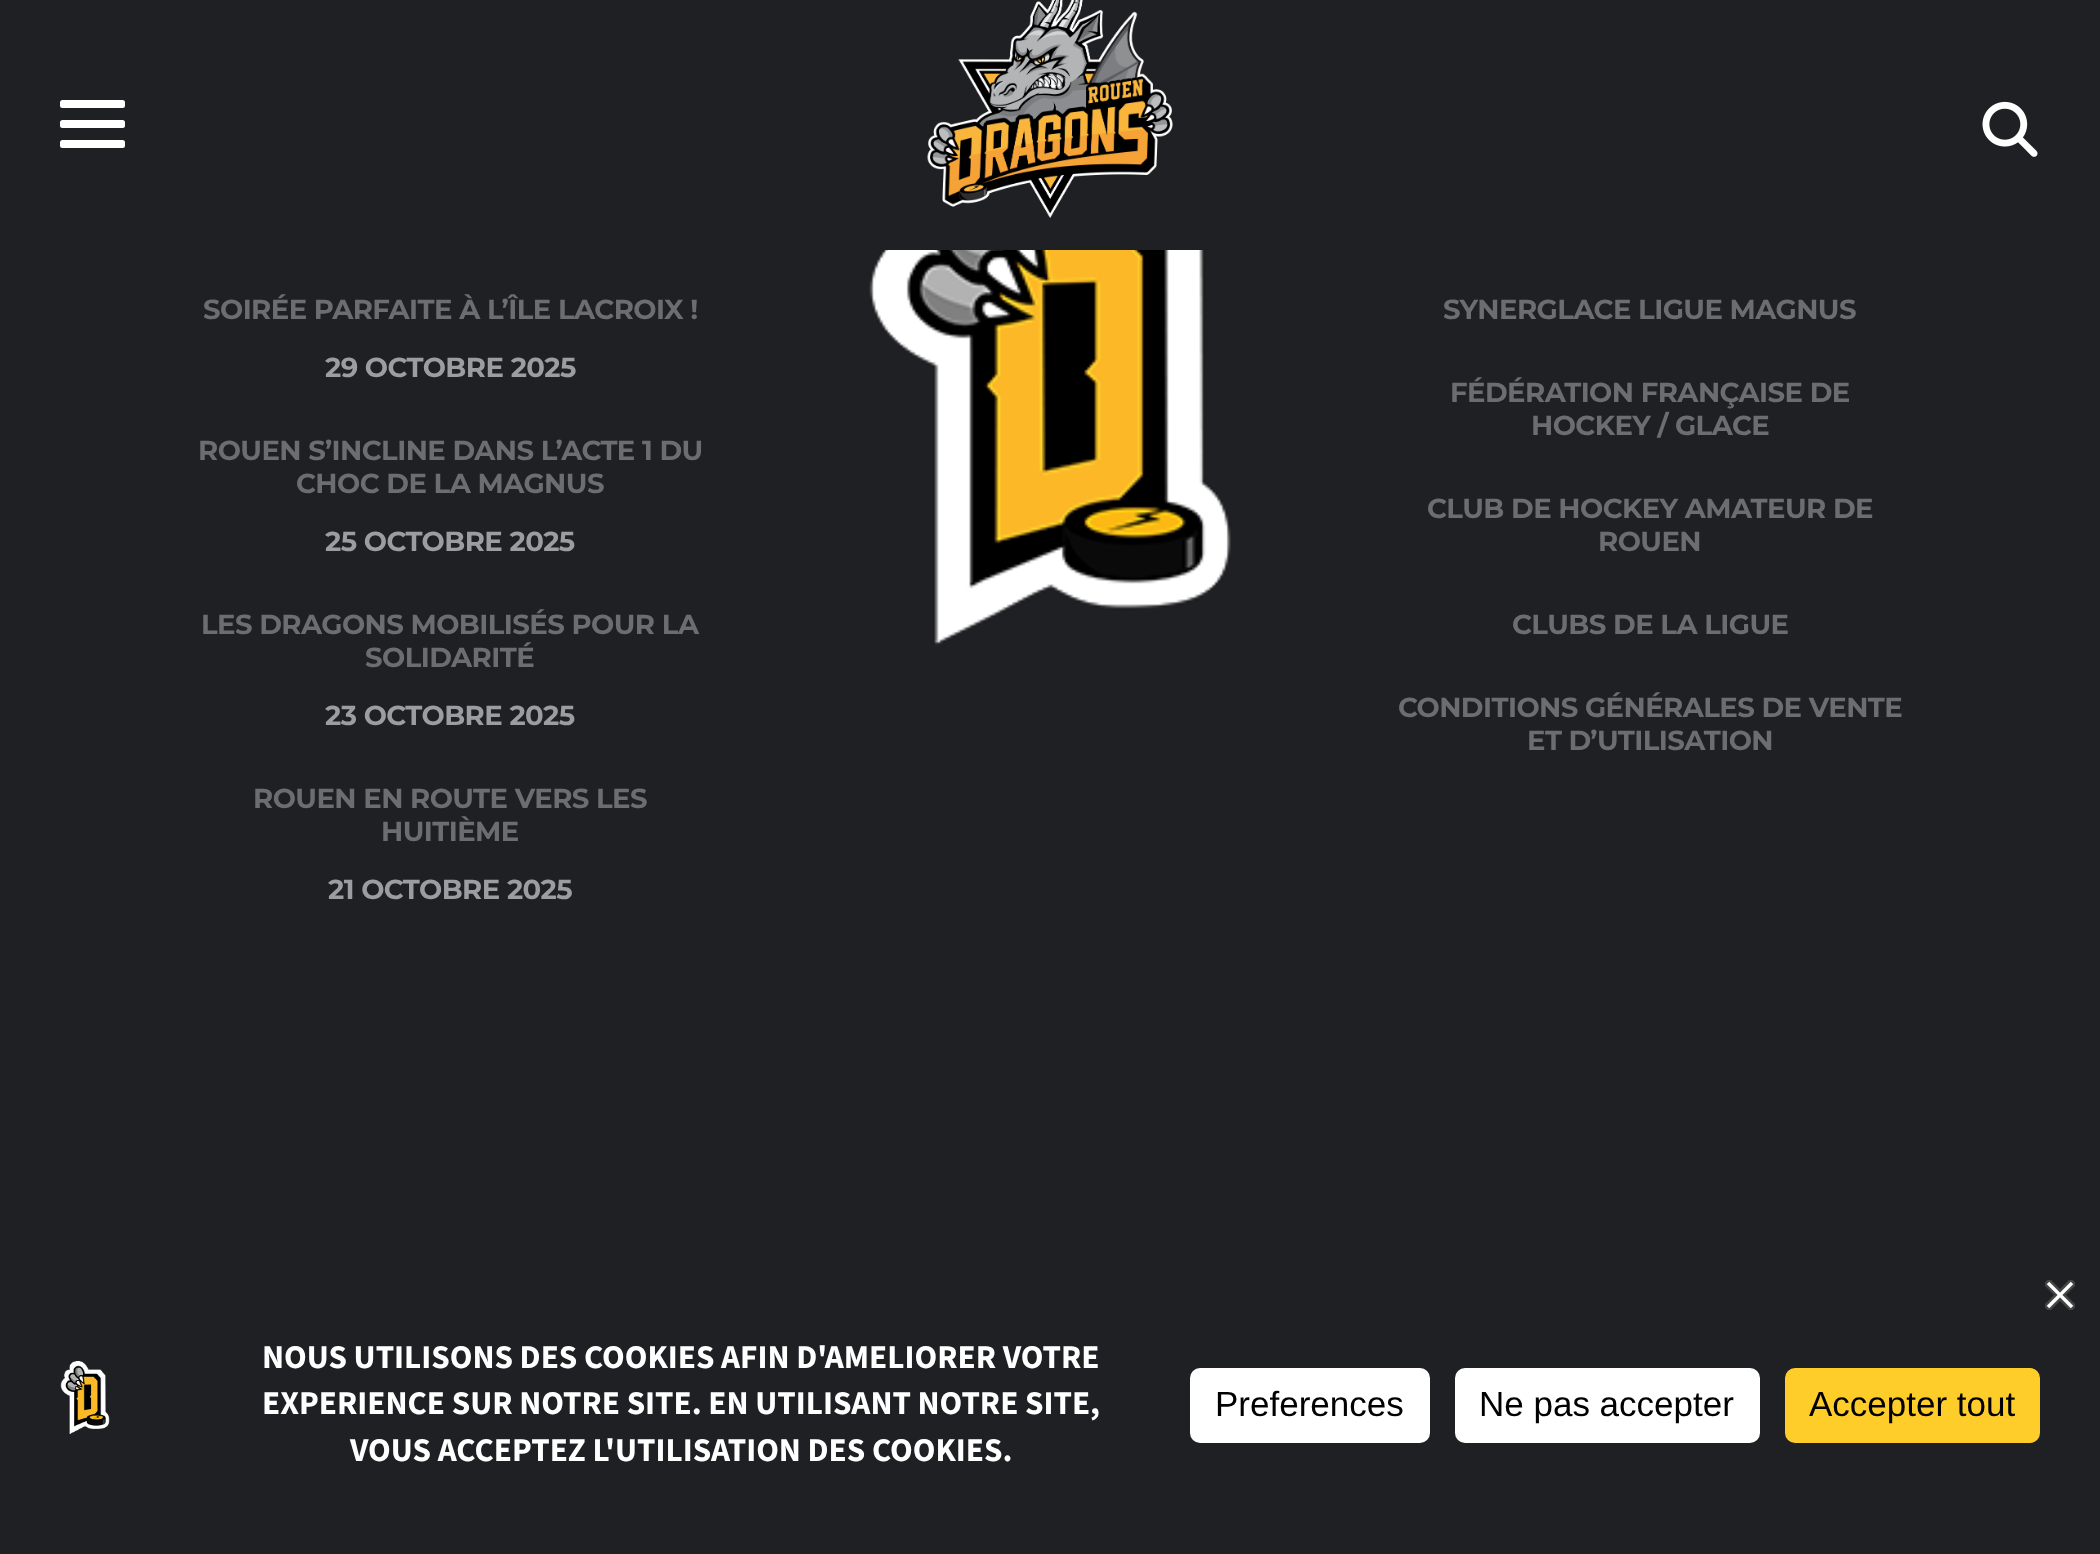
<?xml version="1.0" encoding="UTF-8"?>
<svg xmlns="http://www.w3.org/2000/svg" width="2100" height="1554">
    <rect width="100%" height="100%" fill="#1E2024"/>
    <image x="927" y="0" width="246" height="218" href="img_01.png"/>
    <rect x="60" y="100" width="65" height="8" rx="2.5" fill="#FFFFFF"/>
    <rect x="60" y="120" width="65" height="8" rx="2.5" fill="#FFFFFF"/>
    <rect x="60" y="140" width="65" height="8" rx="2.5" fill="#FFFFFF"/>
    <image x="1982" y="101" width="56" height="56" href="img_02.png"/>
    <text x="203" y="319" font-family="Montserrat" font-size="27.5" font-weight="700" letter-spacing="-0.55" fill="#6B6D70">SOIRÉE PARFAITE À L’ÎLE LACROIX !</text>
    <text x="325" y="377" font-family="Montserrat" font-size="27.5" font-weight="700" letter-spacing="-0.55" fill="#9A9DA2">29 OCTOBRE 2025</text>
    <text x="198" y="460" font-family="Montserrat" font-size="27.5" font-weight="700" letter-spacing="-0.55" fill="#6B6D70">ROUEN S’INCLINE DANS L’ACTE 1 DU</text>
    <text x="296" y="493" font-family="Montserrat" font-size="27.5" font-weight="700" letter-spacing="-0.55" fill="#6B6D70">CHOC DE LA MAGNUS</text>
    <text x="325" y="551" font-family="Montserrat" font-size="27.5" font-weight="700" letter-spacing="-0.55" fill="#9A9DA2">25 OCTOBRE 2025</text>
    <text x="201" y="634" font-family="Montserrat" font-size="27.5" font-weight="700" letter-spacing="-0.55" fill="#6B6D70">LES DRAGONS MOBILISÉS POUR LA</text>
    <text x="365" y="667" font-family="Montserrat" font-size="27.5" font-weight="700" letter-spacing="-0.55" fill="#6B6D70">SOLIDARITÉ</text>
    <text x="325" y="725" font-family="Montserrat" font-size="27.5" font-weight="700" letter-spacing="-0.55" fill="#9A9DA2">23 OCTOBRE 2025</text>
    <text x="253" y="808" font-family="Montserrat" font-size="27.5" font-weight="700" letter-spacing="-0.55" fill="#6B6D70">ROUEN EN ROUTE VERS LES</text>
    <text x="381" y="841" font-family="Montserrat" font-size="27.5" font-weight="700" letter-spacing="-0.55" fill="#6B6D70">HUITIÈME</text>
    <text x="328" y="899" font-family="Montserrat" font-size="27.5" font-weight="700" letter-spacing="-0.55" fill="#9A9DA2">21 OCTOBRE 2025</text>
    <image x="869" y="250" width="362" height="396" href="img_03.png"/>
    <text x="1443" y="319" font-family="Montserrat" font-size="27.5" font-weight="700" letter-spacing="-0.55" fill="#6B6D70">SYNERGLACE LIGUE MAGNUS</text>
    <text x="1450" y="402" font-family="Montserrat" font-size="27.5" font-weight="700" letter-spacing="-0.55" fill="#6B6D70">FÉDÉRATION FRANÇAISE DE</text>
    <text x="1531" y="435" font-family="Montserrat" font-size="27.5" font-weight="700" letter-spacing="-0.55" fill="#6B6D70">HOCKEY / GLACE</text>
    <text x="1427" y="518" font-family="Montserrat" font-size="27.5" font-weight="700" letter-spacing="-0.55" fill="#6B6D70">CLUB DE HOCKEY AMATEUR DE</text>
    <text x="1598" y="551" font-family="Montserrat" font-size="27.5" font-weight="700" letter-spacing="-0.55" fill="#6B6D70">ROUEN</text>
    <text x="1512" y="634" font-family="Montserrat" font-size="27.5" font-weight="700" letter-spacing="-0.55" fill="#6B6D70">CLUBS DE LA LIGUE</text>
    <text x="1398" y="717" font-family="Montserrat" font-size="27.5" font-weight="700" letter-spacing="-0.55" fill="#6B6D70">CONDITIONS GÉNÉRALES DE VENTE</text>
    <text x="1527" y="750" font-family="Montserrat" font-size="27.5" font-weight="700" letter-spacing="-0.55" fill="#6B6D70">ET D’UTILISATION</text>
    <image x="2045" y="1280" width="30" height="30" href="img_04.png"/>
    <image x="60" y="1361" width="50" height="73" href="img_05.png"/>
    <text font-family="'Source Sans 3'" font-size="33.2" font-weight="700" fill="#FFFFFF">
        <tspan x="262" y="1368">NOUS UTILISONS DES COOKIES AFIN D'AMELIORER VOTRE</tspan>
        <tspan x="262" y="1414">EXPERIENCE SUR NOTRE SITE. EN UTILISANT NOTRE SITE,</tspan>
    </text>
    <text x="350" y="1461" font-family="'Source Sans 3'" font-size="33.2" font-weight="700" fill="#FFFFFF">VOUS ACCEPTEZ L'UTILISATION DES COOKIES.</text>
    <rect x="1190" y="1368" width="240" height="75" rx="10" fill="#FFFFFF"/>
    <text x="1215" y="1416" font-family="Liberation Sans" font-size="35" fill="#000000">Preferences</text>
    <rect x="1455" y="1368" width="305" height="75" rx="10" fill="#FFFFFF"/>
    <text x="1479" y="1416" font-family="Liberation Sans" font-size="35" fill="#000000">Ne pas accepter</text>
    <rect x="1785" y="1368" width="255" height="75" rx="10" fill="#FFCD2A"/>
    <text x="1809" y="1416" font-family="Liberation Sans" font-size="35" fill="#000000">Accepter tout</text>
</svg>
